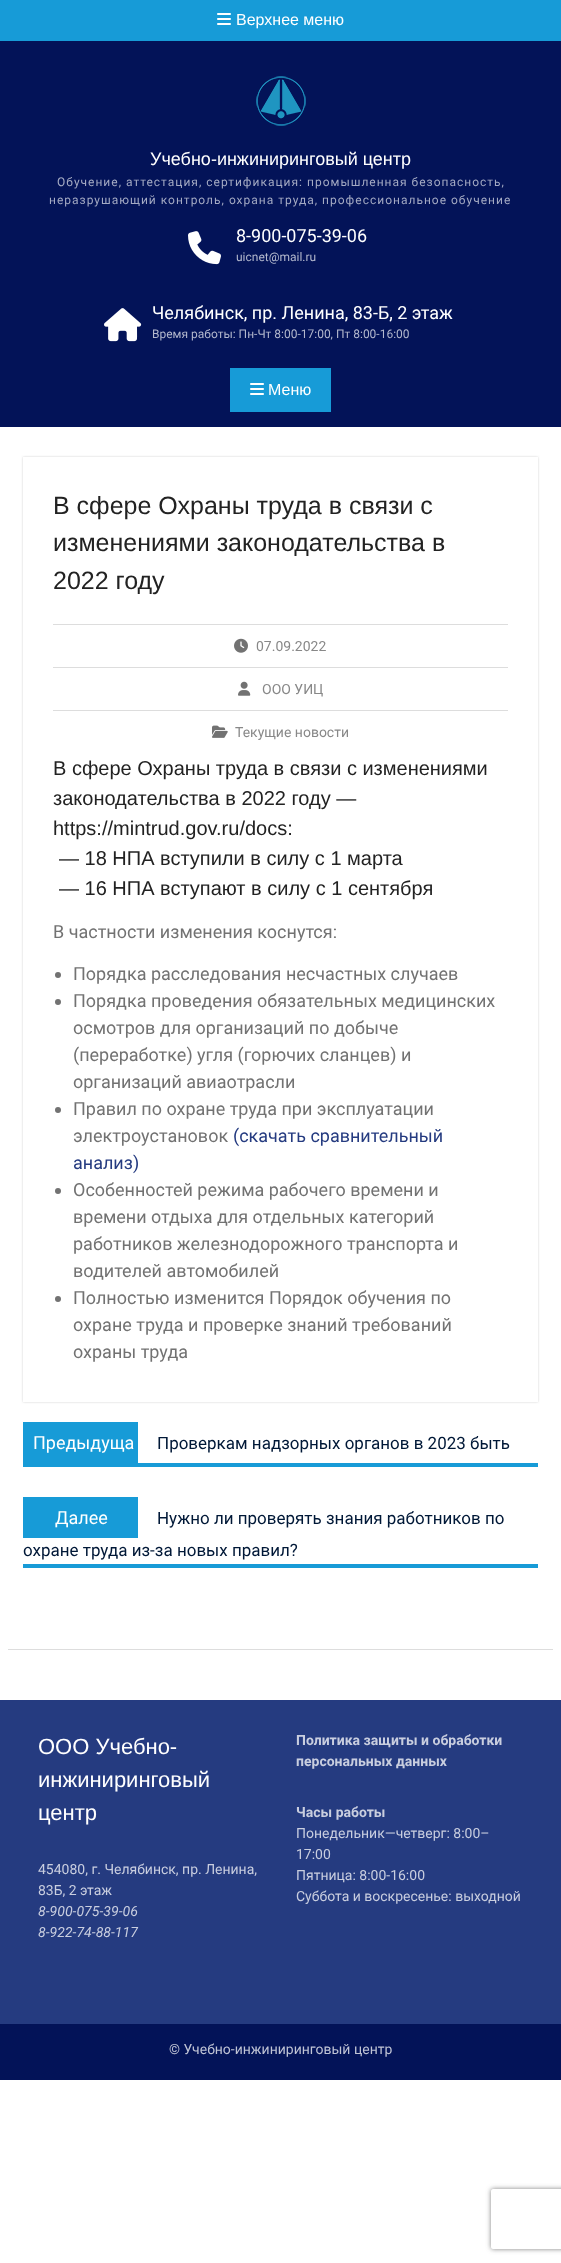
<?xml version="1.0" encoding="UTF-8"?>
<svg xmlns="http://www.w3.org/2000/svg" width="561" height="2263">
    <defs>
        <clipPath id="clip1"><path d="M 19 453 H 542 V 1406 H 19 Z M 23 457 H 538 V 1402 H 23 Z" clip-rule="evenodd"/></clipPath>
        <filter id="blur1" x="-50%" y="-200%" width="200%" height="500%"><feGaussianBlur stdDeviation="1"/></filter>
        <clipPath id="clip2"><path d="M 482 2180 H 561 V 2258 H 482 Z M 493 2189 H 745 C 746 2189 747 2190 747 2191 V 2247 C 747 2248 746 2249 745 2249 H 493 C 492 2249 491 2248 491 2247 V 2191 C 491 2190 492 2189 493 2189 Z" clip-rule="evenodd"/></clipPath>
        <filter id="blur2" x="-50%" y="-200%" width="200%" height="500%"><feGaussianBlur stdDeviation="2.5"/></filter>
    </defs>
    <rect width="100%" height="100%" fill="#FFFFFF"/>
    <rect x="0" y="0" width="561" height="41" fill="#179BD7"/>
    <image x="217" y="13" width="14" height="12" href="img_01.png"/>
    <text x="236" y="25" font-family="Liberation Sans" font-size="16" fill="#FFFFFF">Верхнее меню</text>
    <rect x="0" y="41" width="561" height="386" fill="#031358"/>
    <image x="256" y="76" width="50" height="50" href="img_02.png"/>
    <text x="150" y="165" font-family="Liberation Sans" font-size="18" fill="#FFFFFF">Учебно-инжиниринговый центр</text>
    <text x="57" y="186" font-family="Roboto" font-size="12" letter-spacing="1" fill="#A4AAC3">Обучение, аттестация, сертификация: промышленная безопасность,</text>
    <text x="49" y="204" font-family="Roboto" font-size="12" letter-spacing="1" fill="#A4AAC3">неразрушающий контроль, охрана труда, профессиональное обучение</text>
    <image x="188" y="231" width="33" height="34" href="img_03.png"/>
    <text x="236" y="242" font-family="Roboto" font-size="18" fill="#FFFFFF">8-900-075-39-06</text>
    <text x="236" y="261" font-family="Roboto" font-size="12" fill="#B3B8CD">uicnet@mail.ru</text>
    <image x="104" y="308" width="38" height="34" href="img_04.png"/>
    <text x="152" y="319" font-family="Roboto" font-size="18" fill="#FFFFFF">Челябинск, пр. Ленина, 83-Б, 2 этаж</text>
    <text x="152" y="338" font-family="Roboto" font-size="12" fill="#B3B8CD">Время работы: Пн-Чт 8:00-17:00, Пт 8:00-16:00</text>
    <rect x="230" y="368" width="101" height="44" fill="#179BD7"/>
    <image x="250" y="383" width="14" height="12" href="img_01.png"/>
    <text x="268" y="395" font-family="Liberation Sans" font-size="16" fill="#FFFFFF">Меню</text>
    <rect x="8" y="1649" width="545" height="1" fill="#DDDDDD"/>
    <g clip-path="url(#clip1)">
        <rect x="23" y="457" width="515" height="945" fill="#CFCFCF" filter="url(#blur1)"/>
    </g>
    <text font-family="Liberation Sans" font-size="25" fill="#222222">
        <tspan x="53" y="514">В сфере Охраны труда в связи с</tspan>
        <tspan x="53" y="551">изменениями законодательства в</tspan>
        <tspan x="53" y="589">2022 году</tspan>
    </text>
    <rect x="53" y="624" width="455" height="1" fill="#DDDDDD"/>
    <image x="234" y="638" width="14" height="15" href="img_05.png"/>
    <text x="256" y="651" font-family="Roboto" font-size="14" fill="#888888">07.09.2022</text>
    <rect x="53" y="667" width="455" height="1" fill="#DDDDDD"/>
    <image x="238" y="681" width="13" height="15" href="img_06.png"/>
    <text x="262" y="694" font-family="Roboto" font-size="14" fill="#888888">ООО УИЦ</text>
    <rect x="53" y="710" width="455" height="1" fill="#DDDDDD"/>
    <image x="212" y="725" width="16" height="13" href="img_07.png"/>
    <text x="235" y="737" font-family="Roboto" font-size="14" fill="#888888">Текущие новости</text>
    <text font-family="Liberation Sans" font-size="20" fill="#222222">
        <tspan x="53" y="775">В сфере Охраны труда в связи с изменениями</tspan>
        <tspan x="53" y="805">законодательства в 2022 году —</tspan>
        <tspan x="53" y="835">https://mintrud.gov.ru/docs:</tspan>
    </text>
    <text font-family="Liberation Sans" font-size="20" fill="#222222">
        <tspan x="59" y="865">— 18 НПА вступили в силу с 1 марта</tspan>
        <tspan x="59" y="895">— 16 НПА вступают в силу с 1 сентября</tspan>
    </text>
    <text x="53" y="938" font-family="Roboto" font-size="18" fill="#727272">В частности изменения коснутся:</text>
    <circle cx="58" cy="975" r="3" fill="#727272"/>
    <text x="73" y="980" font-family="Roboto" font-size="18" fill="#727272">Порядка расследования несчастных случаев</text>
    <circle cx="58" cy="1002" r="3" fill="#727272"/>
    <text font-family="Roboto" font-size="18" fill="#727272">
        <tspan x="73" y="1007">Порядка проведения обязательных медицинских</tspan>
        <tspan x="73" y="1034">осмотров для организаций по добыче</tspan>
        <tspan x="73" y="1061">(переработке) угля (горючих сланцев) и</tspan>
        <tspan x="73" y="1088">организаций авиаотрасли</tspan>
    </text>
    <circle cx="58" cy="1110" r="3" fill="#727272"/>
    <text font-family="Roboto" font-size="18" fill="#727272">
        <tspan x="73" y="1115">Правил по охране труда при эксплуатации</tspan>
        <tspan x="73" y="1142">электроустановок</tspan>
    </text>
    <text x="233" y="1142" font-family="Roboto" font-size="18" fill="#253B80">(скачать сравнительный</text>
    <text x="73" y="1169" font-family="Roboto" font-size="18" fill="#253B80">анализ)</text>
    <circle cx="58" cy="1191" r="3" fill="#727272"/>
    <text font-family="Roboto" font-size="18" fill="#727272">
        <tspan x="73" y="1196">Особенностей режима рабочего времени и</tspan>
        <tspan x="73" y="1223">времени отдыха для отдельных категорий</tspan>
        <tspan x="73" y="1250">работников железнодорожного транспорта и</tspan>
        <tspan x="73" y="1277">водителей автомобилей</tspan>
    </text>
    <circle cx="58" cy="1299" r="3" fill="#727272"/>
    <text font-family="Roboto" font-size="18" fill="#727272">
        <tspan x="73" y="1304">Полностью изменится Порядок обучения по</tspan>
        <tspan x="73" y="1331">охране труда и проверке знаний требований</tspan>
        <tspan x="73" y="1358">охраны труда</tspan>
    </text>
    <rect x="23" y="1463" width="515" height="4" fill="#179BD7"/>
    <rect x="23" y="1422" width="115" height="41" fill="#179BD7"/>
    <text x="33" y="1449" font-family="Roboto" font-size="18" fill="#FFFFFF">Предыдуща</text>
    <text x="157" y="1449" font-family="Roboto" font-size="17" fill="#001837">Проверкам надзорных органов в 2023 быть</text>
    <rect x="23" y="1564" width="515" height="4" fill="#179BD7"/>
    <rect x="23" y="1497" width="115" height="41" fill="#179BD7"/>
    <text x="55" y="1524" font-family="Roboto" font-size="18" fill="#FFFFFF">Далее</text>
    <text x="157" y="1524" font-family="Roboto" font-size="17" fill="#001837">Нужно ли проверять знания работников по</text>
    <text x="23" y="1556" font-family="Roboto" font-size="17" fill="#001837">охране труда из-за новых правил?</text>
    <rect x="0" y="1700" width="561" height="324" fill="#253B80"/>
    <text font-family="Liberation Sans" font-size="22" fill="#FFFFFF">
        <tspan x="38" y="1754">ООО Учебно-</tspan>
        <tspan x="38" y="1787">инжиниринговый</tspan>
        <tspan x="38" y="1820">центр</tspan>
    </text>
    <text font-family="Roboto" font-size="14" fill="#C9CEDF">
        <tspan x="38" y="1874">454080, г. Челябинск, пр. Ленина,</tspan>
        <tspan x="38" y="1895">83Б, 2 этаж</tspan>
    </text>
    <text font-family="Roboto" font-size="14" font-style="italic" fill="#C9CEDF">
        <tspan x="38" y="1916">8-900-075-39-06</tspan>
        <tspan x="38" y="1937">8-922-74-88-117</tspan>
    </text>
    <text font-family="Roboto" font-size="14" font-weight="700" fill="#C9CEDF">
        <tspan x="296" y="1745">Политика защиты и обработки</tspan>
        <tspan x="296" y="1766">персональных данных</tspan>
    </text>
    <text x="296" y="1817" font-family="Roboto" font-size="14" font-weight="700" fill="#C9CEDF">Часы работы</text>
    <text font-family="Roboto" font-size="14" fill="#C9CEDF">
        <tspan x="296" y="1838">Понедельник—четверг: 8:00–</tspan>
        <tspan x="296" y="1859">17:00</tspan>
        <tspan x="296" y="1880">Пятница: 8:00-16:00</tspan>
        <tspan x="296" y="1901">Суббота и воскресенье: выходной</tspan>
    </text>
    <rect x="0" y="2024" width="561" height="56" fill="#031358"/>
    <text x="169" y="2054" font-family="Roboto" font-size="14" fill="#C0C4D5">© Учебно-инжиниринговый центр</text>
    <g clip-path="url(#clip2)">
        <rect x="491" y="2189" width="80" height="60" rx="2" fill="#808080" filter="url(#blur2)"/>
    </g>
</svg>
